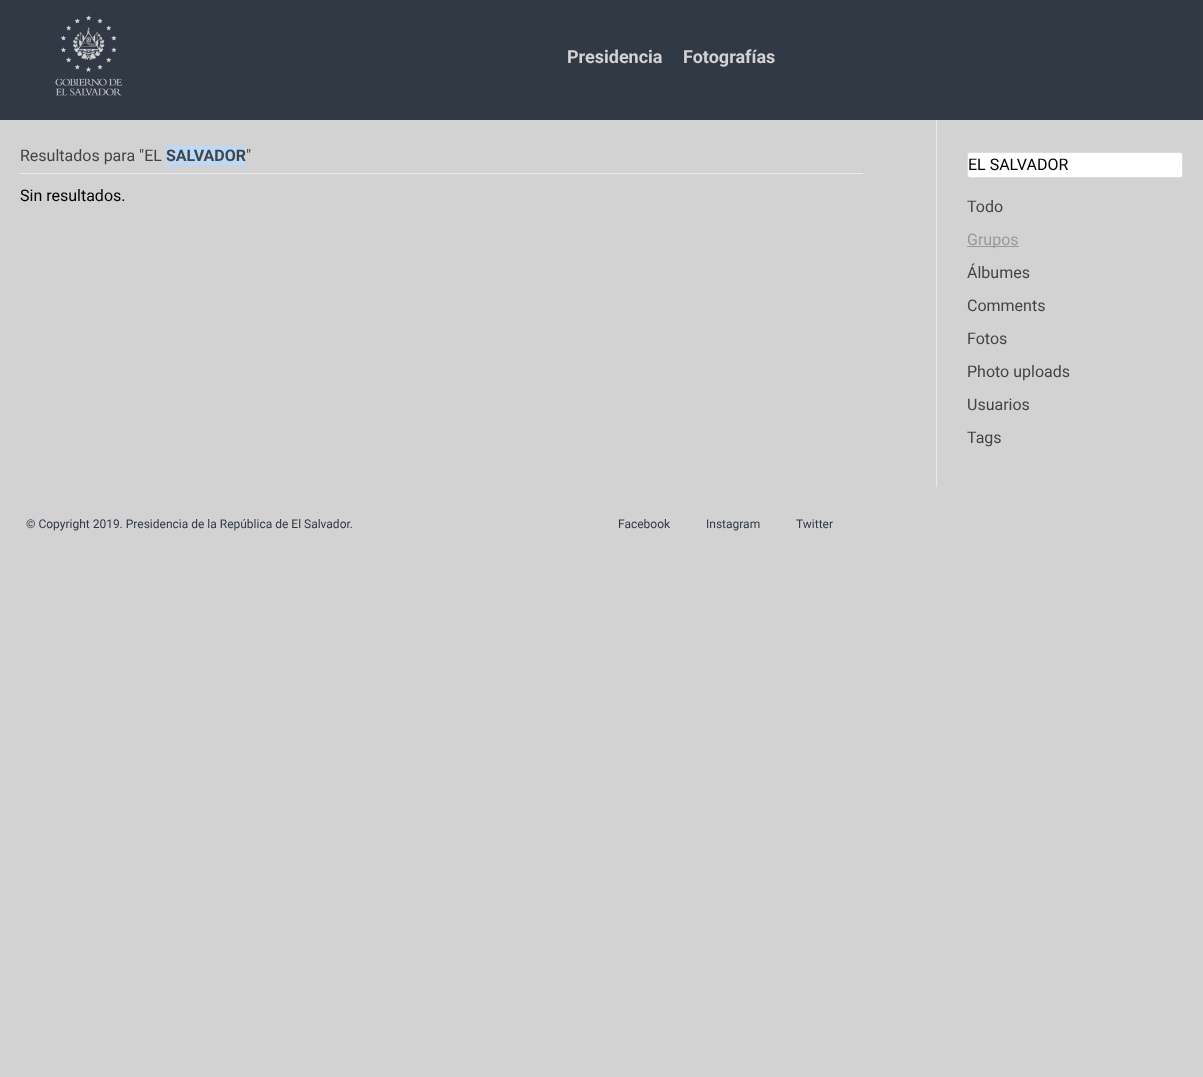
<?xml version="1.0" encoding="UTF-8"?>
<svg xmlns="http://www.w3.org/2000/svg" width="1203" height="1077">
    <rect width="100%" height="100%" fill="#D2D2D2"/>
    <rect x="0" y="0" width="1203" height="120" fill="#313945"/>
    <image x="55" y="15" width="67" height="81" href="img_01.png"/>
    <text x="567" y="63" font-family="Roboto" font-size="18" font-weight="700" fill="#D2D2D2">Presidencia</text>
    <text x="683" y="63" font-family="Roboto" font-size="18" font-weight="700" fill="#D2D2D2">Fotografías</text>
    <rect x="20" y="173" width="843" height="1" fill="#EBEBEB"/>
    <text x="20" y="161" font-family="Roboto" font-size="16" fill="#444444">Resultados para "EL</text>
    <rect x="166" y="146" width="80" height="19" fill="#BBDAF7"/>
    <text x="166" y="161" font-family="Roboto" font-size="16" font-weight="700" fill="#444444">SALVADOR</text>
    <text x="246" y="161" font-family="Roboto" font-size="16" fill="#444444">"</text>
    <text x="20" y="201" font-family="Roboto" font-size="16" fill="#000000">Sin resultados.</text>
    <rect x="936" y="120" width="1" height="367" fill="#EBEBEB"/>
    <rect x="967.5" y="152.5" width="215" height="25" rx="2.5" fill="#FFFFFF" stroke="#DCDCDC"/>
    <text x="968" y="170" font-family="Roboto" font-size="16" fill="#000000">EL SALVADOR</text>
    <text x="967" y="212" font-family="Roboto" font-size="16" fill="#444444">Todo</text>
    <rect x="967" y="246" width="52" height="1" fill="#999999"/>
    <text x="967" y="245" font-family="Roboto" font-size="16" fill="#999999">Grupos</text>
    <text x="967" y="278" font-family="Roboto" font-size="16" fill="#444444">Álbumes</text>
    <text x="967" y="311" font-family="Roboto" font-size="16" fill="#444444">Comments</text>
    <text x="967" y="344" font-family="Roboto" font-size="16" fill="#444444">Fotos</text>
    <text x="967" y="377" font-family="Roboto" font-size="16" fill="#444444">Photo uploads</text>
    <text x="967" y="410" font-family="Roboto" font-size="16" fill="#444444">Usuarios</text>
    <text x="967" y="443" font-family="Roboto" font-size="16" fill="#444444">Tags</text>
    <text x="26" y="528" font-family="Roboto" font-size="12" fill="#313945">© Copyright 2019. Presidencia de la República de El Salvador.</text>
    <text x="618" y="528" font-family="Roboto" font-size="12" fill="#313945">Facebook</text>
    <text x="706" y="528" font-family="Roboto" font-size="12" fill="#313945">Instagram</text>
    <text x="796" y="528" font-family="Roboto" font-size="12" fill="#313945">Twitter</text>
</svg>
